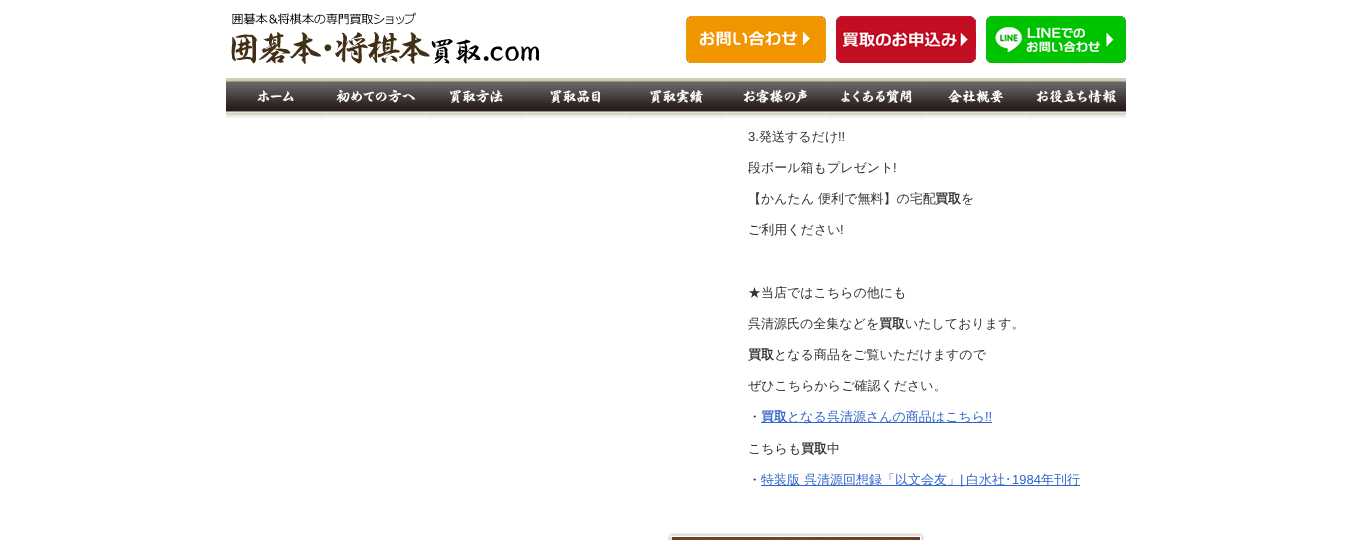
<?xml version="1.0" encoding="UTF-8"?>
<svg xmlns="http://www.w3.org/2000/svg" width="1352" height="540">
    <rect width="100%" height="100%" fill="#FFFFFF"/>
    <image x="231" y="12" width="308" height="52" href="img_01.png"/>
    <image x="686" y="16" width="140" height="47" href="img_02.png"/>
    <image x="836" y="16" width="140" height="47" href="img_03.png"/>
    <image x="986" y="16" width="140" height="47" href="img_04.png"/>
    <image x="226" y="78" width="100" height="41" href="img_05.png"/>
    <image x="326" y="78" width="100" height="41" href="img_06.png"/>
    <image x="426" y="78" width="100" height="41" href="img_07.png"/>
    <image x="526" y="78" width="100" height="41" href="img_08.png"/>
    <image x="626" y="78" width="100" height="41" href="img_09.png"/>
    <image x="726" y="78" width="100" height="41" href="img_10.png"/>
    <image x="826" y="78" width="100" height="41" href="img_11.png"/>
    <image x="926" y="78" width="100" height="41" href="img_12.png"/>
    <image x="1026" y="78" width="100" height="41" href="img_13.png"/>
    <text x="748" y="141" font-family="Liberation Sans" font-size="13" fill="#333333">3.</text>
    <text x="759" y="141" font-family="WenQuanYi Zen Hei" font-size="13" font-weight="500" fill="#333333">発送するだけ</text>
    <text x="838" y="141" font-family="Liberation Sans" font-size="13" fill="#333333">!!</text>
    <text x="748" y="172" font-family="WenQuanYi Zen Hei" font-size="13" font-weight="500" fill="#333333">段ボール箱もプレゼント</text>
    <text x="893" y="172" font-family="Liberation Sans" font-size="13" fill="#333333">!</text>
    <text x="748" y="203" font-family="WenQuanYi Zen Hei" font-size="13" font-weight="500" fill="#333333">【かんたん 便利で無料】の宅配</text>
    <text x="935" y="203" font-family="WenQuanYi Zen Hei" font-size="13" font-weight="700" fill="#333333">買取</text>
    <text x="961" y="203" font-family="WenQuanYi Zen Hei" font-size="13" font-weight="500" fill="#333333">を</text>
    <text x="748" y="234" font-family="WenQuanYi Zen Hei" font-size="13" font-weight="500" fill="#333333">ご利用ください</text>
    <text x="840" y="234" font-family="Liberation Sans" font-size="13" fill="#333333">!</text>
    <text x="748" y="297" font-family="WenQuanYi Zen Hei" font-size="13" font-weight="500" fill="#333333">★当店ではこちらの他にも</text>
    <text x="748" y="328" font-family="WenQuanYi Zen Hei" font-size="13" font-weight="500" fill="#333333">呉清源氏の全集などを</text>
    <text x="879" y="328" font-family="WenQuanYi Zen Hei" font-size="13" font-weight="700" fill="#333333">買取</text>
    <text x="905" y="328" font-family="WenQuanYi Zen Hei" font-size="13" font-weight="500" fill="#333333">いたしております。</text>
    <text x="748" y="359" font-family="WenQuanYi Zen Hei" font-size="13" font-weight="700" fill="#333333">買取</text>
    <text x="774" y="359" font-family="WenQuanYi Zen Hei" font-size="13" font-weight="500" fill="#333333">となる商品をご覧いただけますので</text>
    <text x="748" y="390" font-family="WenQuanYi Zen Hei" font-size="13" font-weight="500" fill="#333333">ぜひこちらからご確認ください。</text>
    <text x="748" y="421" font-family="WenQuanYi Zen Hei" font-size="13" font-weight="500" fill="#333333">・</text>
    <rect x="761" y="422" width="231" height="1" fill="#3366CC"/>
    <text x="761" y="421" font-family="WenQuanYi Zen Hei" font-size="13" font-weight="700" fill="#3366CC">買取</text>
    <text x="787" y="421" font-family="WenQuanYi Zen Hei" font-size="13" font-weight="500" fill="#3366CC">となる呉清源さんの商品はこちら</text>
    <text x="985" y="421" font-family="Liberation Sans" font-size="13" fill="#3366CC">!!</text>
    <text x="748" y="453" font-family="WenQuanYi Zen Hei" font-size="13" font-weight="500" fill="#333333">こちらも</text>
    <text x="801" y="453" font-family="WenQuanYi Zen Hei" font-size="13" font-weight="700" fill="#333333">買取</text>
    <text x="827" y="453" font-family="WenQuanYi Zen Hei" font-size="13" font-weight="500" fill="#333333">中</text>
    <text x="748" y="484" font-family="WenQuanYi Zen Hei" font-size="13" font-weight="500" fill="#333333">・</text>
    <rect x="761" y="485" width="319" height="1" fill="#3366CC"/>
    <text x="761" y="484" font-family="WenQuanYi Zen Hei" font-size="13" font-weight="500" fill="#3366CC">特装版 呉清源回想録「以文会友」</text>
    <text x="960" y="484" font-family="Liberation Sans" font-size="13" fill="#3366CC">|</text>
    <text x="966" y="484" font-family="WenQuanYi Zen Hei" font-size="13" font-weight="500" fill="#3366CC">白水社</text>
    <text x="1005" y="484" font-family="IPAPGothic" font-size="13" fill="#3366CC">･</text>
    <text x="1012" y="484" font-family="Liberation Sans" font-size="13" fill="#3366CC">1984</text>
    <text x="1041" y="484" font-family="WenQuanYi Zen Hei" font-size="13" font-weight="500" fill="#3366CC">年刊行</text>
    <image x="667" y="532" width="258" height="8" href="img_14.png"/>
</svg>
